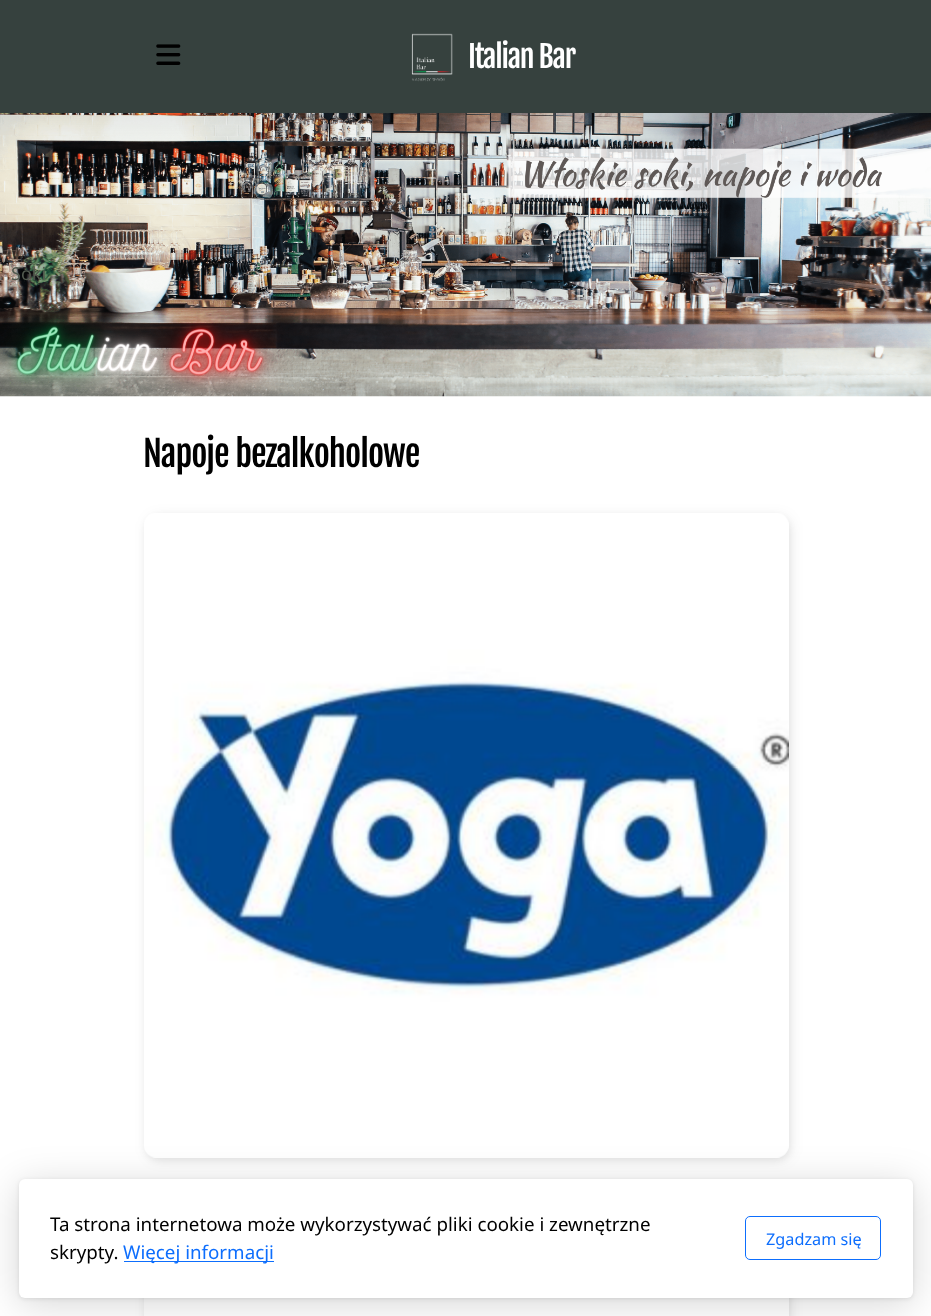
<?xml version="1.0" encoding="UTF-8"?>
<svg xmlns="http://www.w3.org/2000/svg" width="931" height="1316">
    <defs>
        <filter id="blur1" x="-50%" y="-200%" width="200%" height="500%"><feGaussianBlur stdDeviation="18"/></filter>
        <filter id="blur2" x="-50%" y="-200%" width="200%" height="500%"><feGaussianBlur stdDeviation="3"/></filter>
        <filter id="blur3" x="-50%" y="-200%" width="200%" height="500%"><feGaussianBlur stdDeviation="7.5"/></filter>
        <filter id="blur4" x="-50%" y="-200%" width="200%" height="500%"><feGaussianBlur stdDeviation="19"/></filter>
        <filter id="blur5" x="-50%" y="-200%" width="200%" height="500%"><feGaussianBlur stdDeviation="2"/></filter>
    </defs>
    <rect width="100%" height="100%" fill="#FFFFFF"/>
    <image x="0" y="113" width="931" height="284" href="img_03.png"/>
    <text x="11" y="280" font-family="Noto Sans" font-size="18" fill="#525A4F">Soki</text>
    <rect x="0" y="9" width="931" height="112" fill="#000000" fill-opacity="0.09" filter="url(#blur1)"/>
    <rect x="0" y="0" width="931" height="113" fill="#36413E"/>
    <image x="156" y="44" width="25" height="21" href="img_01.png"/>
    <image x="411" y="33" width="42" height="49" href="img_02.png"/>
    <text x="468" y="68" font-family="Fjalla One" font-size="30" letter-spacing="-1.25" fill="#FFFFFF">Italian Bar</text>
    <text x="143" y="467" font-family="Fjalla One" font-size="35" letter-spacing="-1.05" fill="#000000">Napoje bezalkoholowe</text>
    <rect x="145" y="516" width="645" height="645" rx="13" fill="#000000" fill-opacity="0.05" filter="url(#blur2)"/>
    <rect x="149" y="518" width="640" height="640" rx="10" fill="#000000" fill-opacity="0.1" filter="url(#blur3)"/>
    <rect x="144" y="513" width="645" height="645" rx="13" fill="#F5F6F7"/>
    <image x="144" y="513" width="645" height="645" href="img_04.png"/>
    <rect x="145" y="1275" width="645" height="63" rx="13" fill="#000000" fill-opacity="0.05" filter="url(#blur2)"/>
    <rect x="149" y="1276" width="640" height="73" rx="10" fill="#000000" fill-opacity="0.1" filter="url(#blur3)"/>
    <image x="144" y="1298" width="645" height="18" href="img_05.png"/>
    <rect x="19" y="1185" width="894" height="119" rx="6" fill="#000000" fill-opacity="0.16" filter="url(#blur4)"/>
    <rect x="19" y="1180" width="894" height="119" rx="6" fill="#000000" fill-opacity="0.1" filter="url(#blur5)"/>
    <rect x="19" y="1179" width="894" height="119" rx="6" fill="#FFFFFF"/>
    <text font-family="Noto Sans" font-size="18.75" fill="#000000">
        <tspan x="50" y="1231">Ta strona internetowa może wykorzystywać pliki cookie i zewnętrzne</tspan>
        <tspan x="50" y="1259">skrypty.</tspan>
    </text>
    <rect x="124" y="1261" width="150" height="1" fill="#0D6EFD"/>
    <text x="123" y="1259" font-family="Noto Sans" font-size="18.75" fill="#0D6EFD">Więcej informacji</text>
    <rect x="745.5" y="1216.5" width="135" height="43" rx="4.5" fill="none" stroke="#0D6EFD"/>
    <text x="766" y="1245" font-family="Noto Sans" font-size="16.25" fill="#0D6EFD">Zgadzam się</text>
</svg>
